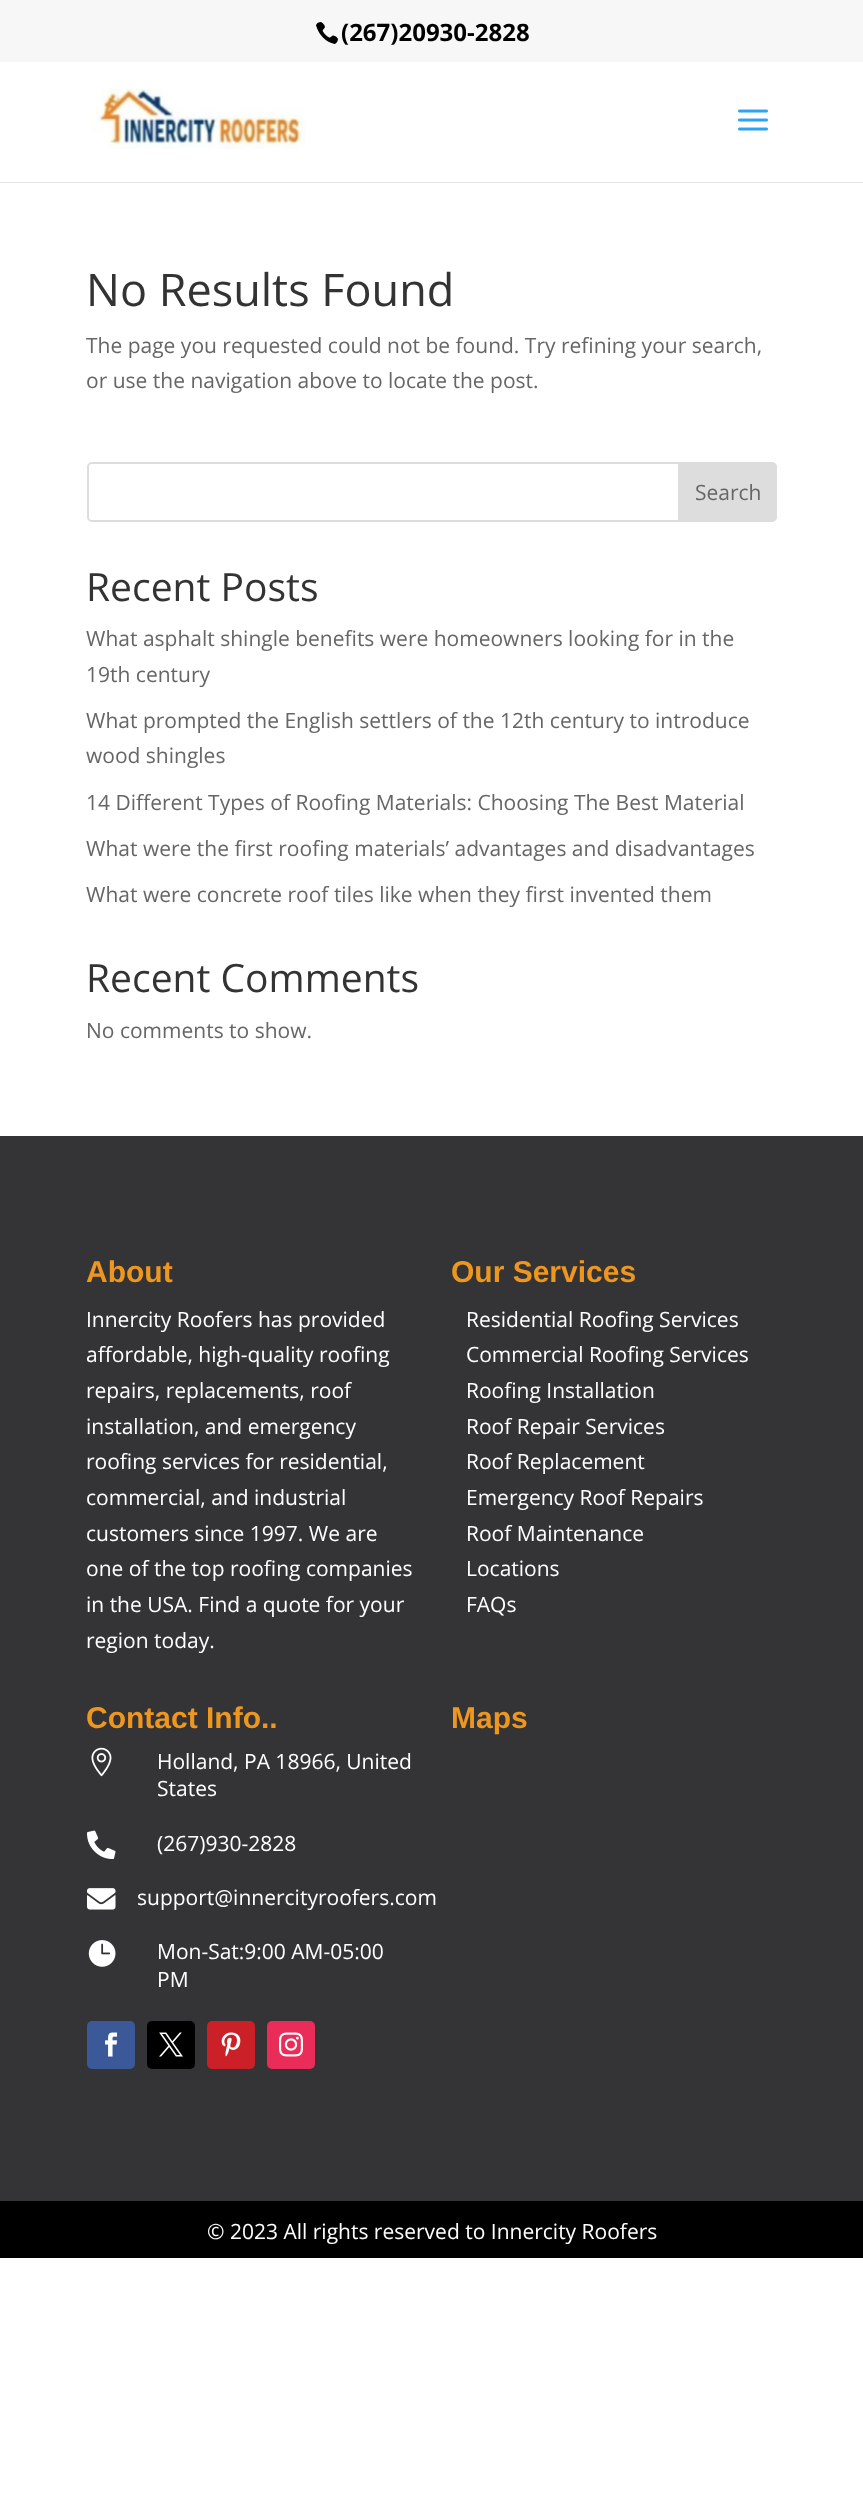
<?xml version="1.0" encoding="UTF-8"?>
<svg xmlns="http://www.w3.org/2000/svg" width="863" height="2502">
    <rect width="100%" height="100%" fill="#FFFFFF"/>
    <rect x="0" y="0" width="863" height="62" fill="#F7F7F7"/>
    <image x="316" y="22" width="22" height="22" href="img_01.png"/>
    <text x="341" y="41" font-family="Open Sans" font-size="24" font-weight="700" fill="#000000">(267)20930-2828</text>
    <rect x="0" y="182" width="863" height="1" fill="#E6E6E6"/>
    <image x="92" y="88" width="214" height="61" href="img_02.png"/>
    <image x="738" y="109" width="30" height="22" href="img_03.png"/>
    <text x="86" y="306" font-family="Open Sans" font-size="45" fill="#333333">No Results Found</text>
    <text font-family="Open Sans" font-size="21" fill="#666666">
        <tspan x="86" y="353">The page you requested could not be found. Try refining your search,</tspan>
        <tspan x="86" y="388">or use the navigation above to locate the post.</tspan>
    </text>
    <rect x="88" y="463" width="688" height="58" rx="4" fill="none" stroke="#DDDDDD" stroke-width="2"/>
    <path d="M 679 463 H 772 C 774 463 776 465 776 467 V 517 C 776 519 774 521 772 521 H 679 Z" fill="#DDDDDD" stroke="#DDDDDD" stroke-width="2"/>
    <text x="695" y="500" font-family="Open Sans" font-size="21" fill="#666666">Search</text>
    <text x="86" y="601" font-family="Open Sans" font-size="39" fill="#333333">Recent Posts</text>
    <text font-family="Open Sans" font-size="21" fill="#666666">
        <tspan x="86" y="646">What asphalt shingle benefits were homeowners looking for in the</tspan>
        <tspan x="86" y="682">19th century</tspan>
    </text>
    <text font-family="Open Sans" font-size="21" fill="#666666">
        <tspan x="86" y="728">What prompted the English settlers of the 12th century to introduce</tspan>
        <tspan x="86" y="763">wood shingles</tspan>
    </text>
    <text x="86" y="810" font-family="Open Sans" font-size="21" fill="#666666">14 Different Types of Roofing Materials: Choosing The Best Material</text>
    <text x="86" y="856" font-family="Open Sans" font-size="21" fill="#666666">What were the first roofing materials’ advantages and disadvantages</text>
    <text x="86" y="902" font-family="Open Sans" font-size="21" fill="#666666">What were concrete roof tiles like when they first invented them</text>
    <text x="86" y="992" font-family="Open Sans" font-size="39" fill="#333333">Recent Comments</text>
    <text x="86" y="1038" font-family="Open Sans" font-size="21" fill="#666666">No comments to show.</text>
    <rect x="0" y="1136" width="863" height="1065" fill="#343436"/>
    <text x="86" y="1282" font-family="Liberation Sans" font-size="30" font-weight="700" fill="#ED9720">About</text>
    <text font-family="Open Sans" font-size="21" fill="#FFFFFF">
        <tspan x="86" y="1327">Innercity Roofers has provided</tspan>
        <tspan x="86" y="1362">affordable, high-quality roofing</tspan>
        <tspan x="86" y="1398">repairs, replacements, roof</tspan>
        <tspan x="86" y="1434">installation, and emergency</tspan>
        <tspan x="86" y="1469">roofing services for residential,</tspan>
        <tspan x="86" y="1505">commercial, and industrial</tspan>
        <tspan x="86" y="1541">customers since 1997. We are</tspan>
        <tspan x="86" y="1576">one of the top roofing companies</tspan>
        <tspan x="86" y="1612">in the USA. Find a quote for your</tspan>
        <tspan x="86" y="1648">region today.</tspan>
    </text>
    <text x="451" y="1282" font-family="Liberation Sans" font-size="30" font-weight="700" fill="#ED9720">Our Services</text>
    <text font-family="Open Sans" font-size="21" fill="#FFFFFF">
        <tspan x="466" y="1327">Residential Roofing Services</tspan>
        <tspan x="466" y="1362">Commercial Roofing Services</tspan>
        <tspan x="466" y="1398">Roofing Installation</tspan>
        <tspan x="466" y="1434">Roof Repair Services</tspan>
        <tspan x="466" y="1469">Roof Replacement</tspan>
        <tspan x="466" y="1505">Emergency Roof Repairs</tspan>
        <tspan x="466" y="1541">Roof Maintenance</tspan>
        <tspan x="466" y="1576">Locations</tspan>
        <tspan x="466" y="1612">FAQs</tspan>
    </text>
    <text x="86" y="1728" font-family="Liberation Sans" font-size="30" font-weight="700" fill="#ED9720">Contact Info..</text>
    <image x="91" y="1747" width="21" height="30" href="img_04.png"/>
    <text font-family="Open Sans" font-size="21" fill="#FFFFFF">
        <tspan x="157" y="1769">Holland, PA 18966, United</tspan>
        <tspan x="157" y="1796">States</tspan>
    </text>
    <image x="87" y="1830" width="29" height="30" href="img_05.png"/>
    <text x="157" y="1851" font-family="Open Sans" font-size="21" fill="#FFFFFF">(267)930-2828</text>
    <image x="87" y="1888" width="29" height="22" href="img_06.png"/>
    <text x="137" y="1905" font-family="Open Sans" font-size="21" fill="#FFFFFF">support@innercityroofers.com</text>
    <image x="88" y="1940" width="28" height="27" href="img_07.png"/>
    <text font-family="Open Sans" font-size="21" fill="#FFFFFF">
        <tspan x="157" y="1959">Mon-Sat:9:00 AM-05:00</tspan>
        <tspan x="157" y="1987">PM</tspan>
    </text>
    <rect x="87" y="2021" width="48" height="48" rx="5" fill="#3B5998"/>
    <image x="105" y="2032" width="13" height="25" href="img_08.png"/>
    <rect x="147" y="2021" width="48" height="48" rx="5" fill="#000000"/>
    <image x="159" y="2032" width="24" height="25" href="img_09.png"/>
    <rect x="207" y="2021" width="48" height="48" rx="5" fill="#CB2027"/>
    <image x="221" y="2032" width="20" height="25" href="img_10.png"/>
    <rect x="267" y="2021" width="48" height="48" rx="5" fill="#EA2C59"/>
    <image x="279" y="2032" width="24" height="25" href="img_11.png"/>
    <text x="451" y="1728" font-family="Liberation Sans" font-size="30" font-weight="700" fill="#ED9720">Maps</text>
    <rect x="0" y="2201" width="863" height="57" fill="#000000"/>
    <text x="207" y="2239" font-family="Open Sans" font-size="21" fill="#FFFFFF">© 2023 All rights reserved to Innercity Roofers</text>
</svg>
